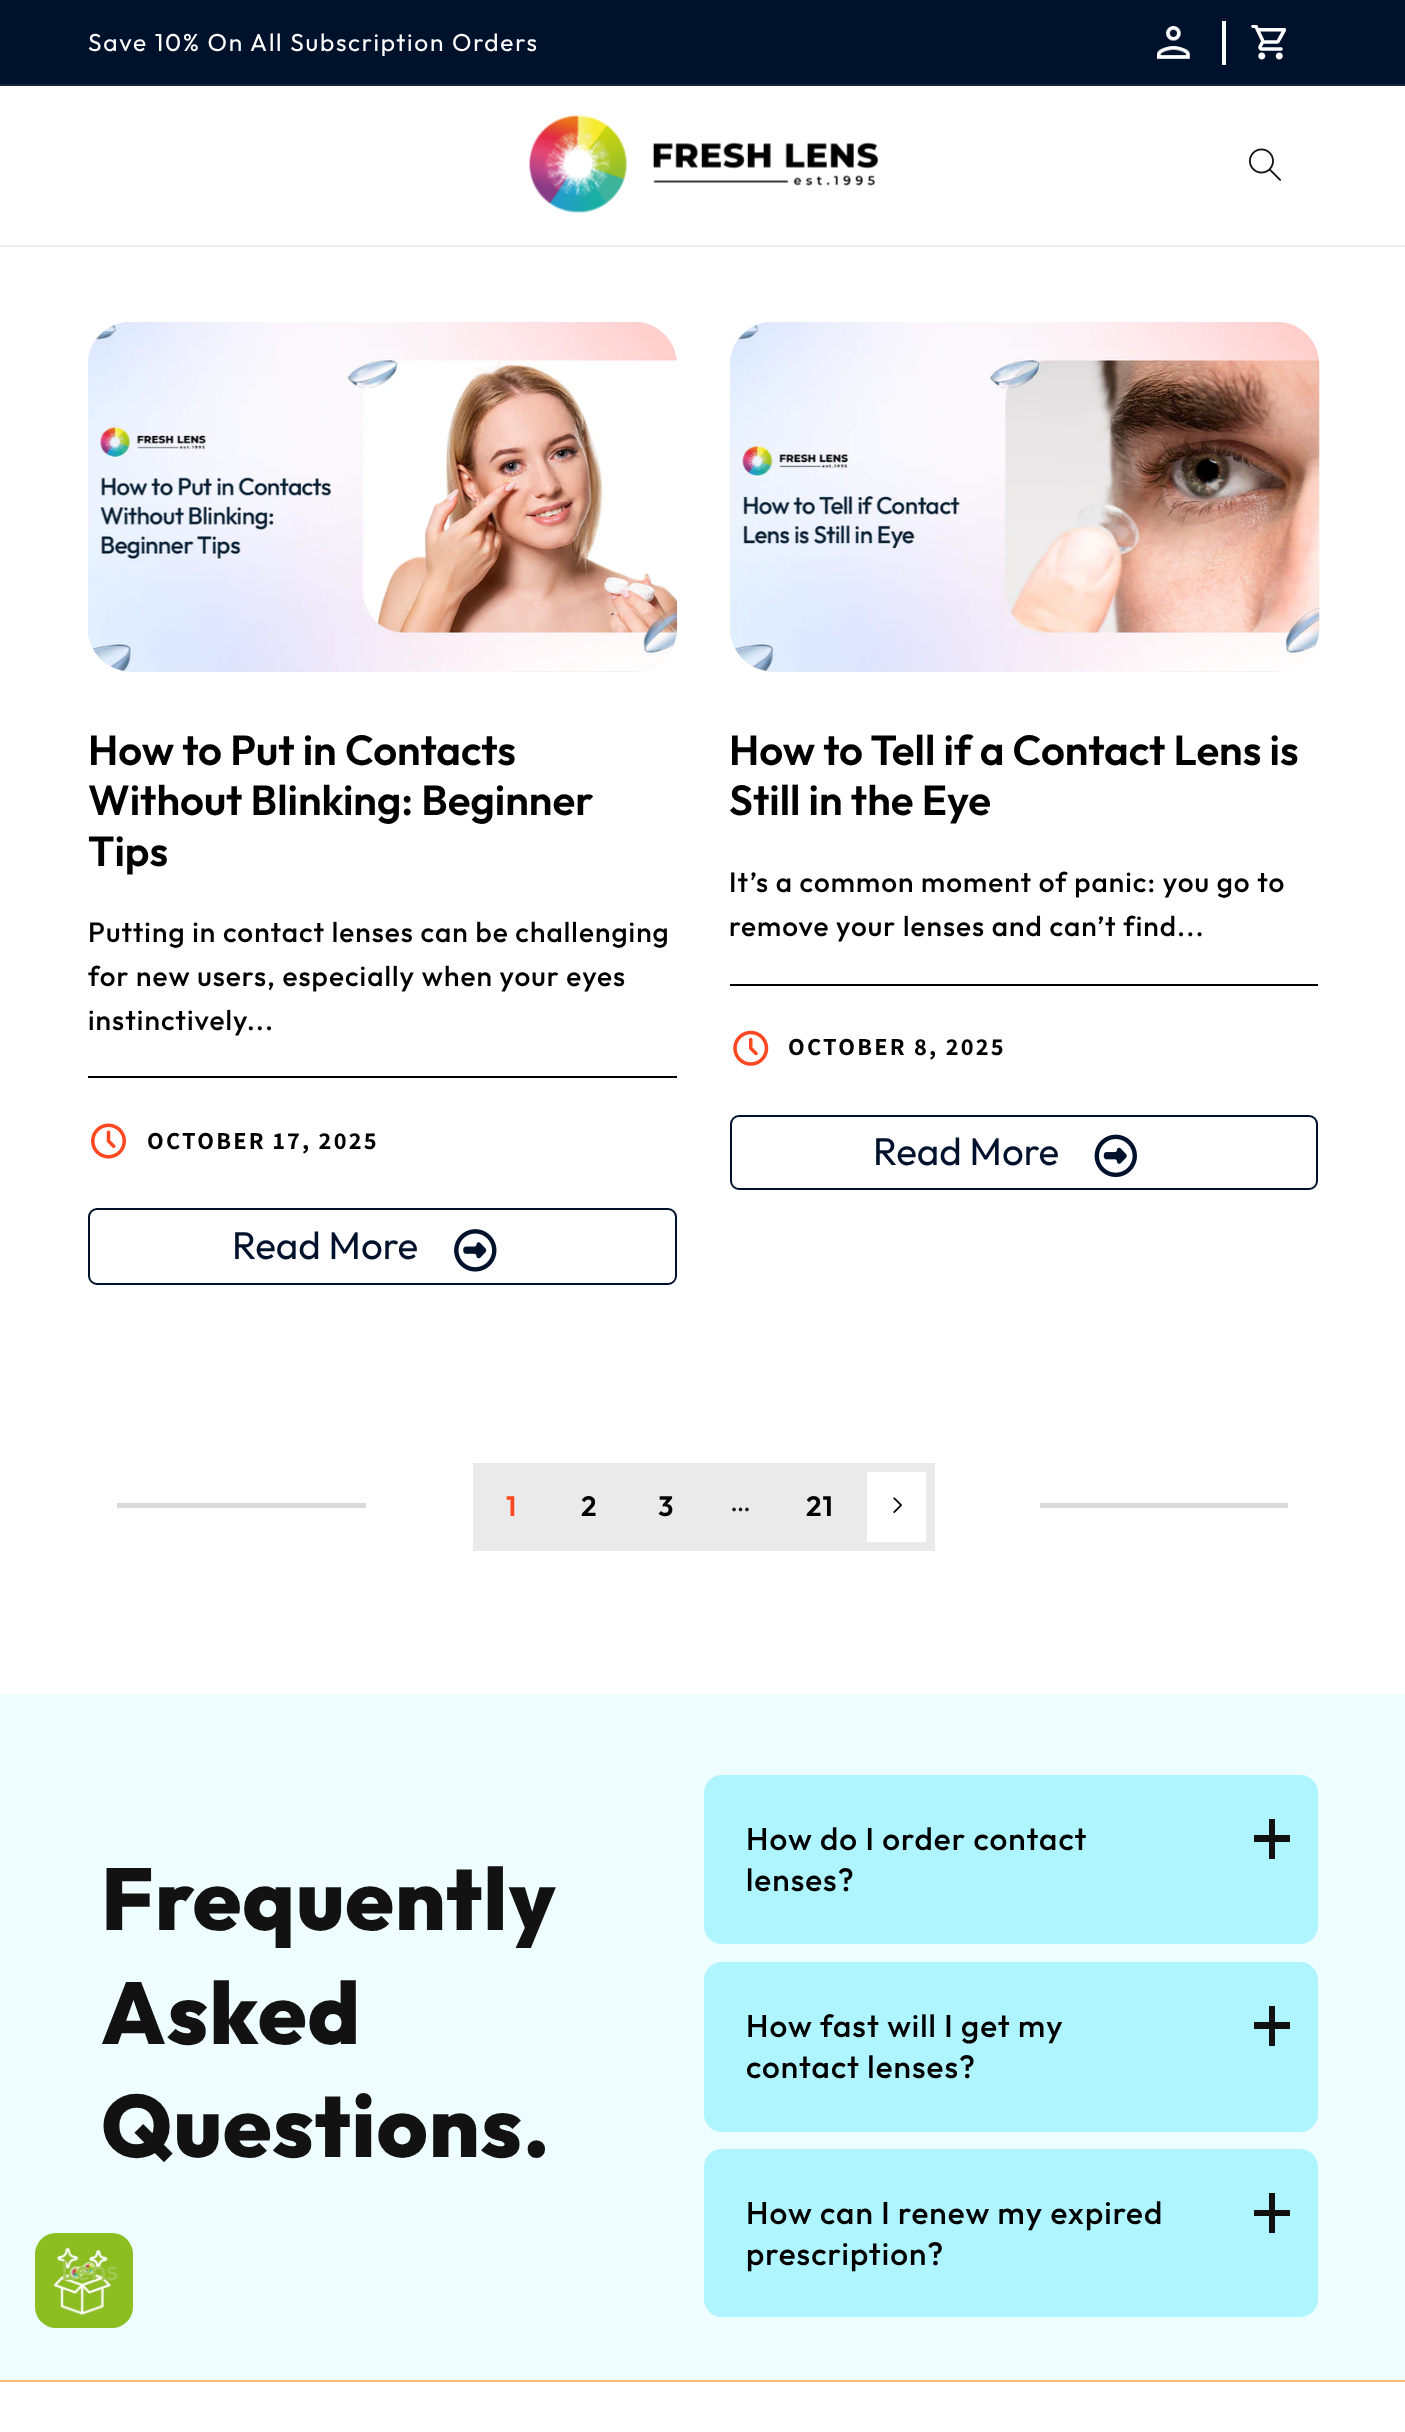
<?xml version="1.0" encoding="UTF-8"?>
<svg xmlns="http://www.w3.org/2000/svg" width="1405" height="2432">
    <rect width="100%" height="100%" fill="#FFFFFF"/>
    <rect x="0" y="0" width="1405" height="84" fill="#00112B"/>
    <rect x="0" y="84" width="1405" height="2" fill="#14243C"/>
    <text x="88" y="51" font-family="Outfit" font-size="24.5" letter-spacing="1.75" fill="#FFFFFF">Save 10% On All Subscription Orders</text>
    <rect x="1222" y="21" width="4" height="44" fill="#FFFFFF"/>
    <image x="1157" y="26" width="33" height="33" href="img_01.png"/>
    <image x="1251" y="25" width="35" height="35" href="img_02.png"/>
    <rect x="0" y="245" width="1405" height="2" fill="#ECECEC"/>
    <image x="528" y="115" width="350" height="98" href="img_03.png"/>
    <image x="1249" y="148" width="32" height="33" href="img_04.png"/>
    <rect x="88" y="322" width="589" height="350" rx="44" fill="#E8E8E8"/>
    <image x="88" y="322" width="590" height="350" href="img_05.png"/>
    <text font-family="Outfit" font-size="42" font-weight="600" fill="#000000">
        <tspan x="88" y="765">How to Put in Contacts</tspan>
        <tspan x="88" y="815">Without Blinking: Beginner</tspan>
        <tspan x="88" y="866">Tips</tspan>
    </text>
    <text font-family="Outfit" font-size="28" font-weight="500" letter-spacing="1.05" fill="#000000">
        <tspan x="88" y="942">Putting in contact lenses can be challenging</tspan>
        <tspan x="88" y="986">for new users, especially when your eyes</tspan>
        <tspan x="88" y="1030">instinctively...</tspan>
    </text>
    <rect x="88" y="1076" width="589" height="2" fill="#000000"/>
    <image x="91" y="1123" width="35" height="36" href="img_06.png"/>
    <text x="147" y="1149" font-family="Assistant" font-size="24.5" font-weight="700" letter-spacing="2.25" fill="#000000">OCTOBER 17, 2025</text>
    <rect x="89" y="1209" width="587" height="75" rx="8" fill="none" stroke="#00112B" stroke-width="2"/>
    <text x="232" y="1259" font-family="Outfit" font-size="38.5" fill="#00112B">Read More</text>
    <image x="454" y="1229" width="43" height="43" href="img_07.png"/>
    <rect x="730" y="322" width="588" height="350" rx="44" fill="#E8E8E8"/>
    <image x="730" y="322" width="590" height="350" href="img_08.png"/>
    <text font-family="Outfit" font-size="42" font-weight="600" fill="#000000">
        <tspan x="729" y="765">How to Tell if a Contact Lens is</tspan>
        <tspan x="729" y="815">Still in the Eye</tspan>
    </text>
    <text font-family="Outfit" font-size="28" font-weight="500" letter-spacing="1.05" fill="#000000">
        <tspan x="729" y="892">It’s a common moment of panic: you go to</tspan>
        <tspan x="729" y="936">remove your lenses and can’t find...</tspan>
    </text>
    <rect x="730" y="984" width="588" height="2" fill="#000000"/>
    <image x="733" y="1030" width="36" height="36" href="img_09.png"/>
    <text x="788" y="1055" font-family="Assistant" font-size="24.5" font-weight="700" letter-spacing="2.25" fill="#000000">OCTOBER 8, 2025</text>
    <rect x="731" y="1116" width="586" height="73" rx="8" fill="none" stroke="#00112B" stroke-width="2"/>
    <text x="873" y="1165" font-family="Outfit" font-size="38.5" fill="#00112B">Read More</text>
    <image x="1094" y="1134" width="43" height="43" href="img_10.png"/>
    <rect x="117" y="1503" width="249" height="5" fill="#DADADA"/>
    <rect x="473" y="1463" width="385" height="88" fill="#EAEAEA"/>
    <text x="506" y="1516" font-family="Outfit" font-size="28" font-weight="600" letter-spacing="1.05" fill="#FF4820">1</text>
    <text x="581" y="1516" font-family="Outfit" font-size="28" font-weight="600" letter-spacing="1.05" fill="#000000">2</text>
    <text x="658" y="1516" font-family="Outfit" font-size="28" font-weight="600" letter-spacing="1.05" fill="#000000">3</text>
    <text x="730" y="1511" font-family="Outfit" font-size="28" letter-spacing="1.05" fill="#121212">…</text>
    <text x="806" y="1516" font-family="Outfit" font-size="28" font-weight="600" letter-spacing="1.05" fill="#000000">21</text>
    <rect x="862.5" y="1467.5" width="68" height="79" fill="none" stroke="#EAEAEA" stroke-width="9"/>
    <image x="893" y="1497" width="9" height="16" href="img_11.png"/>
    <rect x="1040" y="1503" width="248" height="5" fill="#DADADA"/>
    <rect x="0" y="1694" width="1405" height="686" fill="#EEFDFF"/>
    <text font-family="Outfit" font-size="87.5" font-weight="800" letter-spacing="1.05" fill="#121212">
        <tspan x="101" y="1930">Frequently</tspan>
        <tspan x="101" y="2044">Asked</tspan>
        <tspan x="101" y="2157">Questions.</tspan>
    </text>
    <rect x="704" y="1775" width="614" height="169" rx="18" fill="#AEF5FF"/>
    <text font-family="Outfit" font-size="31.5" font-weight="500" letter-spacing="1.05" fill="#000000">
        <tspan x="746" y="1850">How do I order contact</tspan>
        <tspan x="746" y="1891">lenses?</tspan>
    </text>
    <rect x="1254" y="1835" width="36" height="7" fill="#111111"/>
    <rect x="1269" y="1819" width="6" height="40" fill="#111111"/>
    <rect x="704" y="1962" width="614" height="170" rx="18" fill="#AEF5FF"/>
    <text font-family="Outfit" font-size="31.5" font-weight="500" letter-spacing="1.05" fill="#000000">
        <tspan x="746" y="2037">How fast will I get my</tspan>
        <tspan x="746" y="2078">contact lenses?</tspan>
    </text>
    <rect x="1254" y="2022" width="36" height="7" fill="#111111"/>
    <rect x="1269" y="2006" width="6" height="40" fill="#111111"/>
    <rect x="704" y="2149" width="614" height="168" rx="18" fill="#AEF5FF"/>
    <text font-family="Outfit" font-size="31.5" font-weight="500" letter-spacing="1.05" fill="#000000">
        <tspan x="746" y="2224">How can I renew my expired</tspan>
        <tspan x="746" y="2265">prescription?</tspan>
    </text>
    <rect x="1254" y="2210" width="36" height="6" fill="#111111"/>
    <rect x="1269" y="2193" width="6" height="40" fill="#111111"/>
    <rect x="35" y="2233" width="98" height="95" rx="21" fill="#8CBE22"/>
    <image x="47" y="2247" width="65" height="69" href="img_12.png"/>
    <text x="61" y="2280" font-family="Outfit" font-size="28" fill="#A2C854">Lens</text>
    <rect x="0" y="2380" width="1405" height="2" fill="#FFBA70"/>
</svg>
